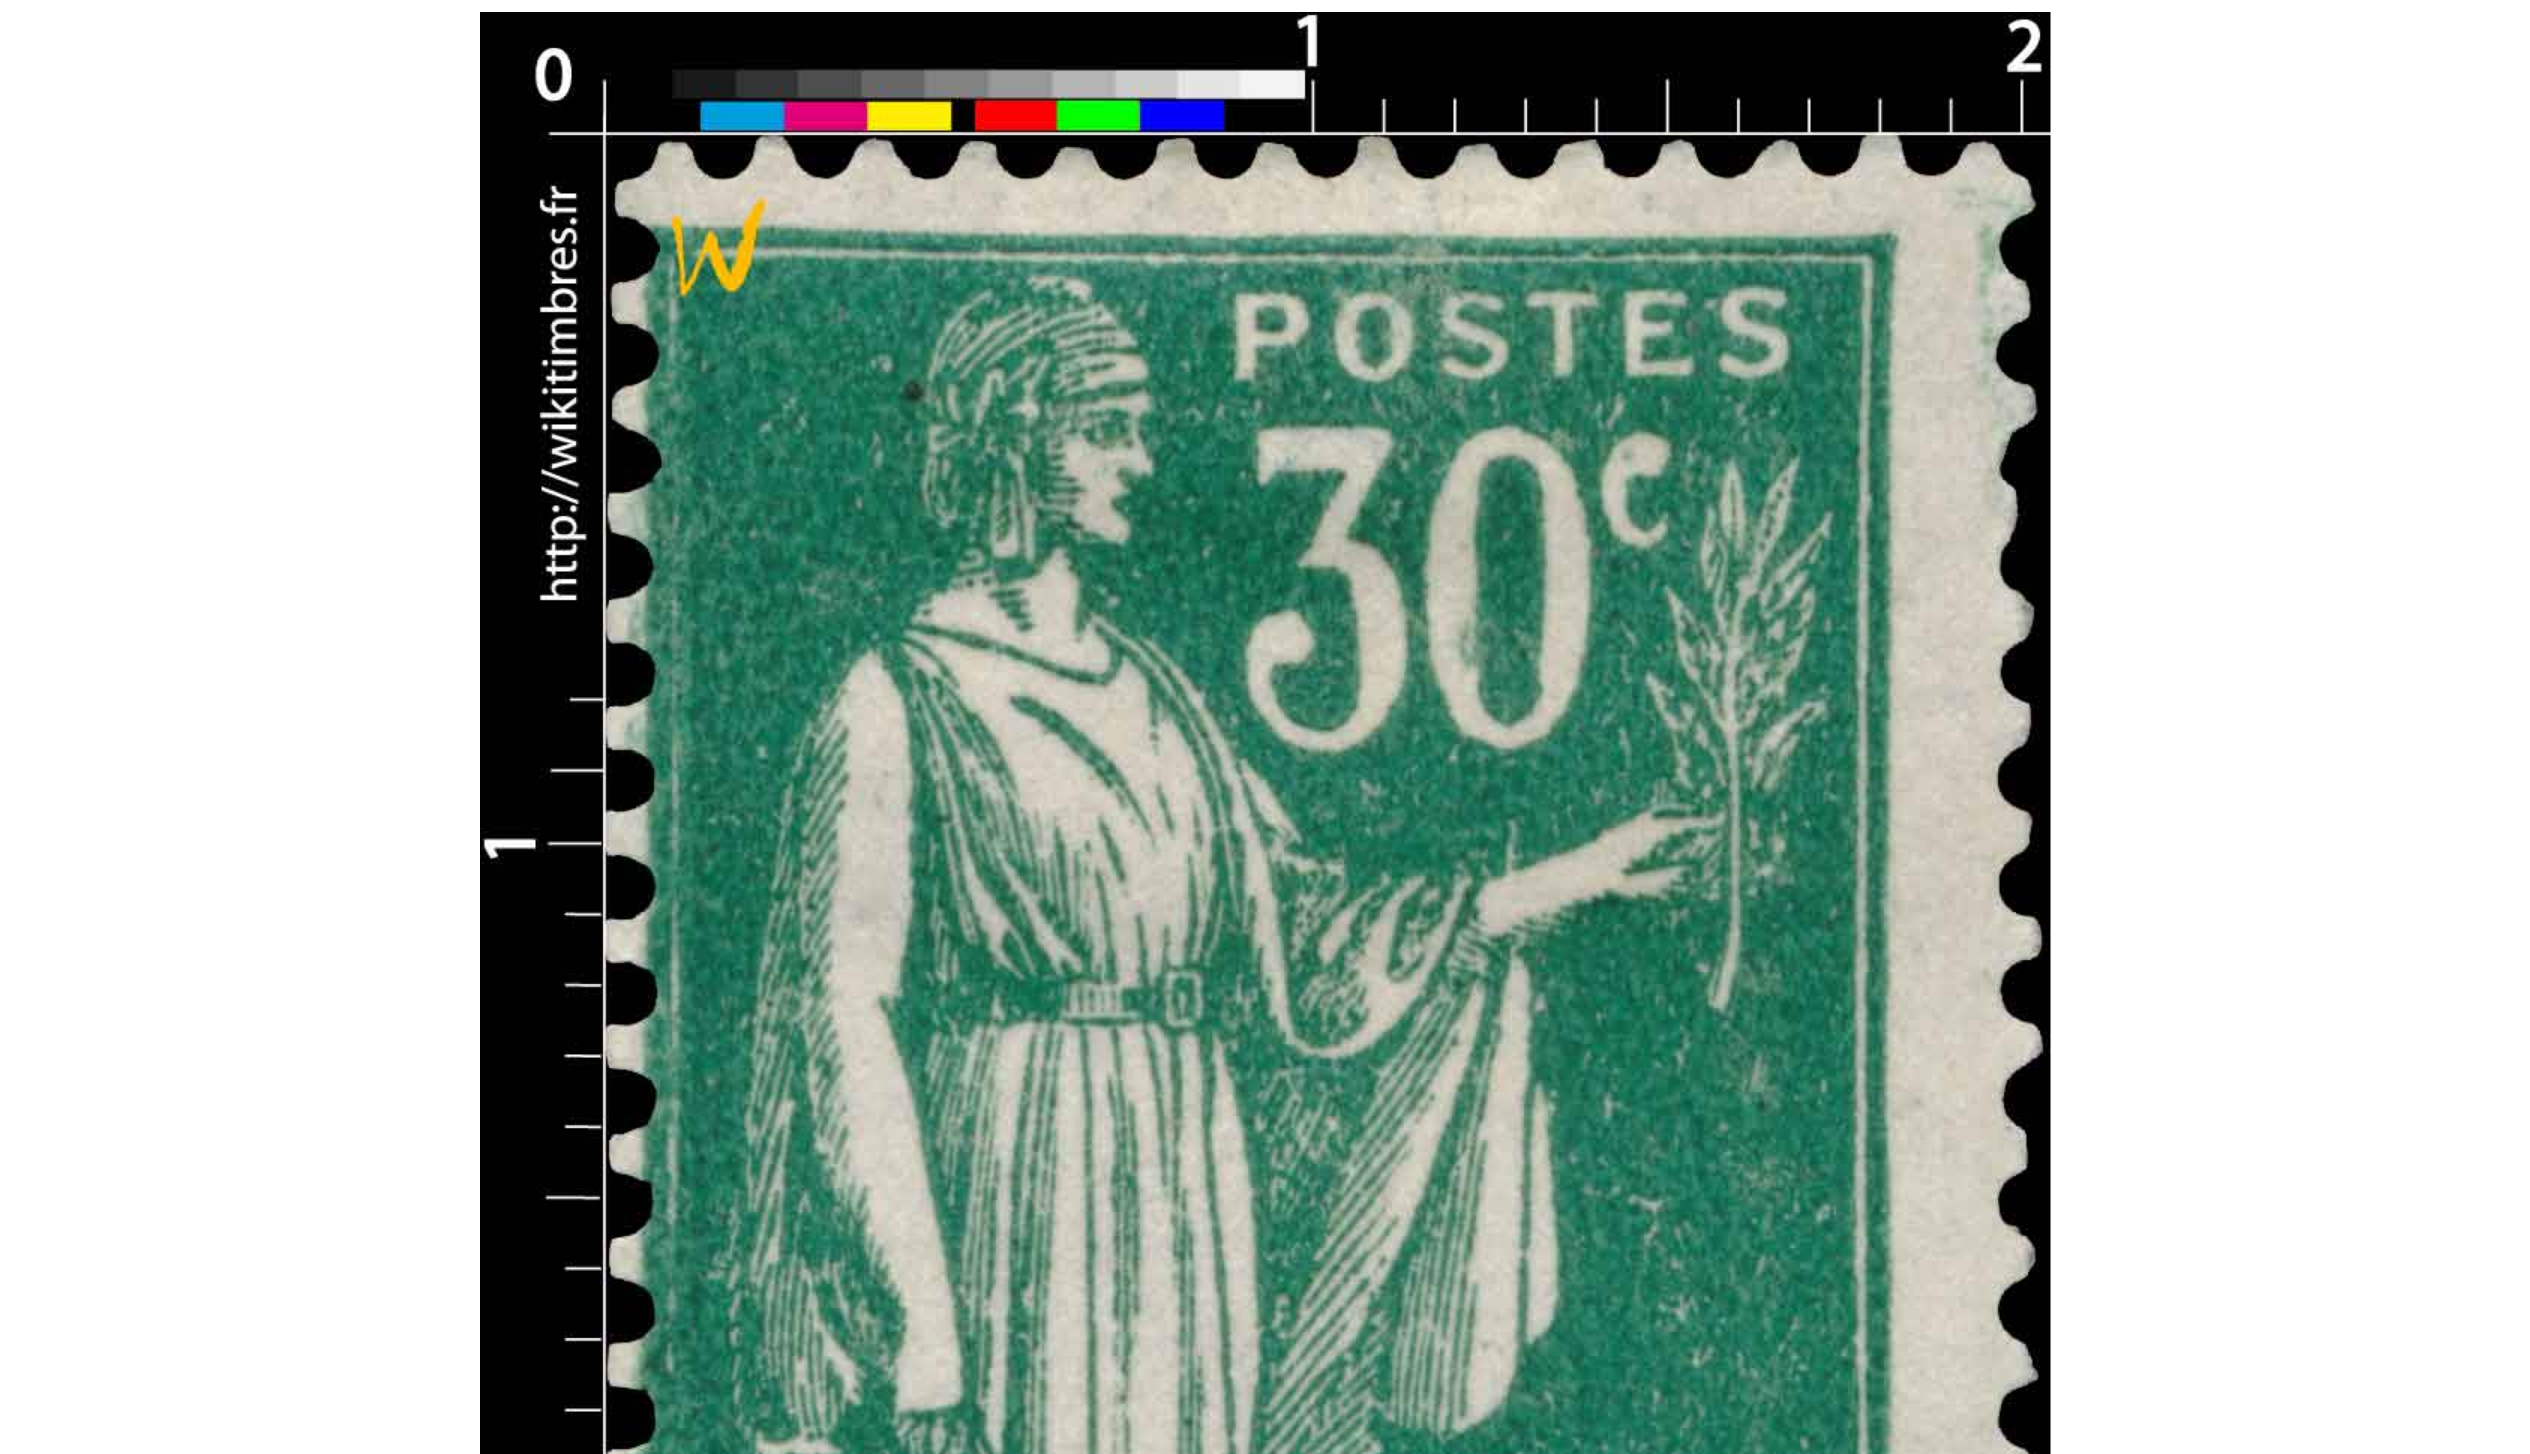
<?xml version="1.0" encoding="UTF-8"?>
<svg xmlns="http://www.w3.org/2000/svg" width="2530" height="1454">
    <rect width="100%" height="100%" fill="#FFFFFF"/>
    <image x="480" y="12" width="1571" height="1442" href="img_01.png"/>
</svg>
